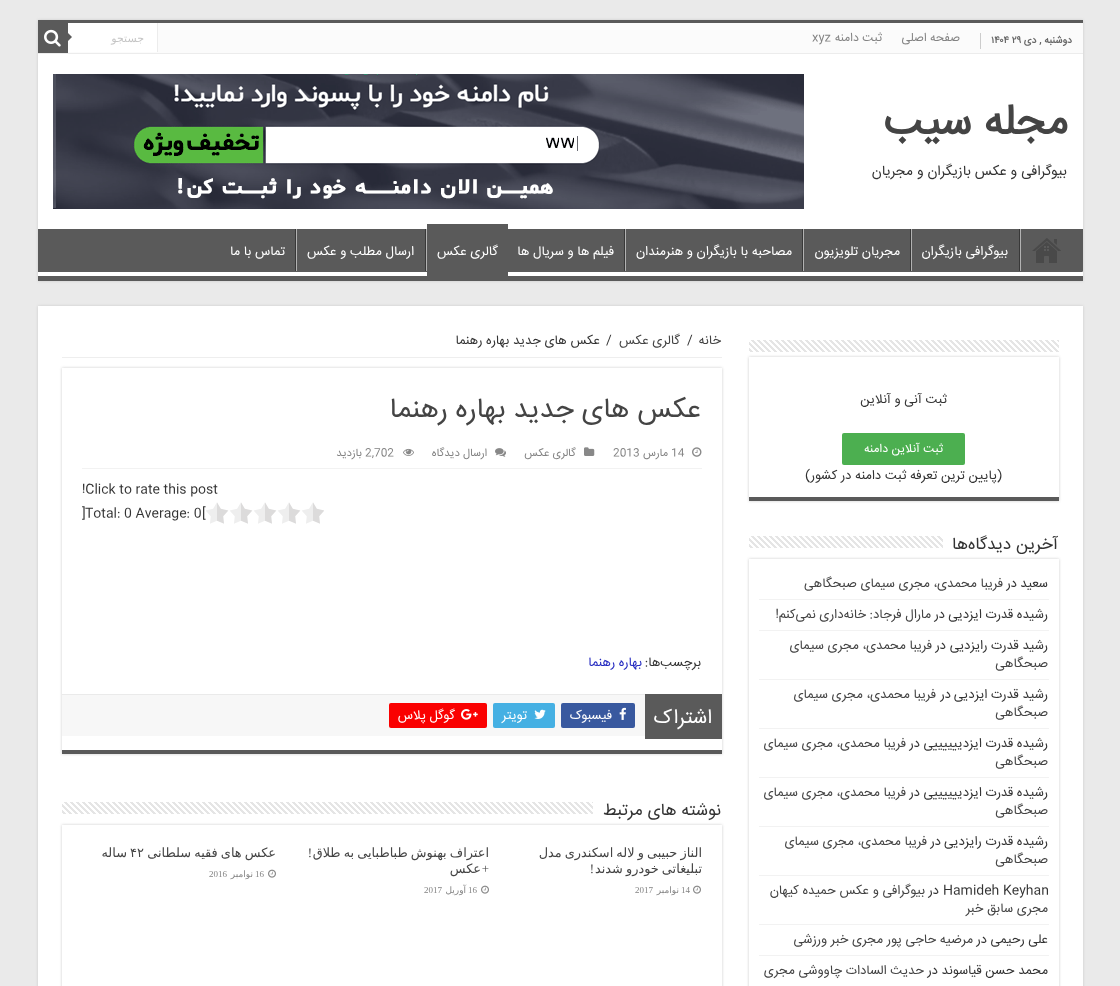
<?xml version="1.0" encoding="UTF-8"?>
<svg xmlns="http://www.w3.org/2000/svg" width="1120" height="986">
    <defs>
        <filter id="blur1" x="-50%" y="-200%" width="200%" height="500%"><feGaussianBlur stdDeviation="1.5"/></filter>
        <clipPath id="clip1"><rect x="38" y="229" width="1045" height="47"/></clipPath>
        <clipPath id="clip2"><path d="M 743 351 H 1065 V 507 H 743 Z M 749 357 H 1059 V 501 H 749 Z" clip-rule="evenodd"/></clipPath>
        <clipPath id="clip3"><path d="M 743 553 H 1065 V 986 H 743 Z M 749 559 H 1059 V 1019 H 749 Z" clip-rule="evenodd"/></clipPath>
        <clipPath id="clip4"><path d="M 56 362 H 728 V 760 H 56 Z M 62 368 H 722 V 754 H 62 Z" clip-rule="evenodd"/></clipPath>
        <clipPath id="clip5"><path d="M 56 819 H 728 V 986 H 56 Z M 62 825 H 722 V 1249 H 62 Z" clip-rule="evenodd"/></clipPath>
    </defs>
    <rect width="100%" height="100%" fill="#EAEAEA"/>
    <rect x="38" y="20" width="1045" height="261" fill="#CACACA" filter="url(#blur1)"/>
    <rect x="38" y="54" width="1045" height="175" fill="#FFFFFF"/>
    <rect x="38" y="20" width="1045" height="3" fill="#5A5A5A"/>
    <rect x="68" y="23" width="1015" height="30" fill="#FBFBFB"/>
    <rect x="38" y="53" width="1045" height="1" fill="#ECECEC"/>
    <rect x="980" y="33" width="1" height="16" fill="#CCCCCC"/>
    <text x="1072" y="43" font-family="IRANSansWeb" font-size="10" font-weight="700" direction="rtl" fill="#666666">دوشنبه , دی</text>
    <text x="991" y="43" font-family="IRANSansWeb" font-size="10" font-weight="700" fill="#666666">۱۴۰۴ ۲۹</text>
    <text x="960" y="41" font-family="IRANSansWeb" font-size="12" direction="rtl" fill="#838383">صفحه اصلی</text>
    <text x="882" y="41" font-family="IRANSansWeb" font-size="12" direction="rtl" fill="#838383">ثبت دامنه</text>
    <text x="812" y="41" font-family="IRANSansWeb" font-size="12" fill="#838383">xyz</text>
    <rect x="68" y="23" width="89" height="29" fill="#FFFFFF"/>
    <rect x="157" y="23" width="1" height="29" fill="#ECECEC"/>
    <text x="144" y="42" font-family="DejaVu Sans" font-size="11" direction="rtl" fill="#C5C5C5">جستجو</text>
    <rect x="38" y="23" width="30" height="30" fill="#5A5A5A"/>
    <image x="44" y="29" width="17" height="18" href="img_01.png"/>
    <path d="M 68 41 V 33 L 72 37 Z" fill="#5A5A5A"/>
    <text x="1068" y="134" font-family="IRANSansWeb" font-size="42.5" font-weight="700" direction="rtl" fill="#444444">مجله سیب</text>
    <text x="1067" y="175" font-family="IRANSansWeb" font-size="14" direction="rtl" fill="#333333">بیوگرافی و عکس بازیگران و مجریان</text>
    <image x="53" y="74" width="751" height="135" href="img_02.png"/>
    <rect x="38" y="229" width="1045" height="52" fill="#5A5A5A"/>
    <g clip-path="url(#clip1)">
        <path d="M -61 130 H 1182 V 375 H -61 Z M 37 223 H 1083 V 263 C 1083 264 1084 272 1082 272 H 37 L 36 271 V 223 Z" fill="#FFFFFF" fill-rule="evenodd"/>
    </g>
    <image x="1032" y="238" width="29" height="25" href="img_03.png"/>
    <rect x="1020" y="229" width="1" height="42" fill="#B2B2B2"/>
    <rect x="1019" y="229" width="1" height="42" fill="#383838"/>
    <text x="1008" y="255" font-family="IRANSansWeb" font-size="13" direction="rtl" fill="#FFFFFF">بیوگرافی بازیگران</text>
    <rect x="911" y="229" width="1" height="42" fill="#B2B2B2"/>
    <rect x="910" y="229" width="1" height="42" fill="#383838"/>
    <text x="900" y="255" font-family="IRANSansWeb" font-size="13" direction="rtl" fill="#FFFFFF">مجریان تلویزیون</text>
    <rect x="803" y="229" width="1" height="42" fill="#B2B2B2"/>
    <rect x="802" y="229" width="1" height="42" fill="#383838"/>
    <text x="792" y="255" font-family="IRANSansWeb" font-size="13" direction="rtl" fill="#FFFFFF">مصاحبه با بازیگران و هنرمندان</text>
    <rect x="625" y="229" width="1" height="42" fill="#B2B2B2"/>
    <rect x="624" y="229" width="1" height="42" fill="#383838"/>
    <text x="614" y="255" font-family="IRANSansWeb" font-size="13" direction="rtl" fill="#FFFFFF">فیلم ها و سریال ها</text>
    <rect x="427" y="224" width="81" height="52" fill="#5A5A5A"/>
    <text x="498" y="255" font-family="IRANSansWeb" font-size="13" direction="rtl" fill="#FFFFFF">گالری عکس</text>
    <rect x="426" y="229" width="1" height="42" fill="#B2B2B2"/>
    <rect x="425" y="229" width="1" height="42" fill="#383838"/>
    <text x="414" y="255" font-family="IRANSansWeb" font-size="13" direction="rtl" fill="#FFFFFF">ارسال مطلب و عکس</text>
    <rect x="296" y="229" width="1" height="42" fill="#B2B2B2"/>
    <rect x="295" y="229" width="1" height="42" fill="#383838"/>
    <text x="285" y="255" font-family="IRANSansWeb" font-size="13" direction="rtl" fill="#FFFFFF">تماس با ما</text>
    <rect x="38" y="306" width="1045" height="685" fill="#CACACA" filter="url(#blur1)"/>
    <rect x="38" y="306" width="1045" height="680" fill="#FFFFFF"/>
    <g clip-path="url(#clip2)">
        <rect x="749" y="357" width="310" height="144" fill="#CACACA" filter="url(#blur1)"/>
    </g>
    <image x="749" y="340" width="310" height="12" href="img_04.png"/>
    <rect x="749" y="497" width="310" height="4" fill="#5A5A5A"/>
    <text x="947" y="403" font-family="IRANSansWeb" font-size="13" direction="rtl" fill="#333333">ثبت آنی و آنلاین</text>
    <rect x="842" y="433" width="123" height="32" rx="2" fill="#4CAF50"/>
    <text x="943" y="452" font-family="IRANSansWeb" font-size="12" direction="rtl" fill="#FFFFFF">ثبت آنلاین دامنه</text>
    <text x="1002" y="479" font-family="IRANSansWeb" font-size="13" direction="rtl" fill="#333333">(پایین ترین تعرفه ثبت دامنه در کشور)</text>
    <g clip-path="url(#clip3)">
        <rect x="749" y="559" width="310" height="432" fill="#CACACA" filter="url(#blur1)"/>
    </g>
    <text x="1058" y="549" font-family="IRANSansWeb" font-size="17" direction="rtl" fill="#333333">آخرین دیدگاه‌ها</text>
    <image x="749" y="536" width="194" height="12" href="img_05.png"/>
    <rect x="759" y="599" width="290" height="1" fill="#F2F2F2"/>
    <text x="1048" y="587" font-family="IRANSansWeb" font-size="13" direction="rtl" fill="#333333">سعید</text>
    <text x="1017" y="587" font-family="IRANSansWeb" font-size="13" direction="rtl" fill="#333333">در</text>
    <text x="1003" y="587" font-family="IRANSansWeb" font-size="13" direction="rtl" fill="#444444">فریبا محمدی، مجری سیمای صبحگاهی</text>
    <rect x="759" y="630" width="290" height="1" fill="#F2F2F2"/>
    <text x="1048" y="618" font-family="IRANSansWeb" font-size="13" direction="rtl" fill="#333333">رشیده قدرت ایزدیی</text>
    <text x="945" y="618" font-family="IRANSansWeb" font-size="13" direction="rtl" fill="#333333">در</text>
    <text x="931" y="618" font-family="IRANSansWeb" font-size="13" direction="rtl" fill="#444444">مارال فرجاد: خانه‌داری نمی‌کنم!</text>
    <rect x="759" y="679" width="290" height="1" fill="#F2F2F2"/>
    <text x="1048" y="649" font-family="IRANSansWeb" font-size="13" direction="rtl" fill="#333333">رشید قدرت رایزدیی</text>
    <text x="946" y="649" font-family="IRANSansWeb" font-size="13" direction="rtl" fill="#333333">در</text>
    <text x="932" y="649" font-family="IRANSansWeb" font-size="13" direction="rtl" fill="#444444">فریبا محمدی، مجری سیمای</text>
    <text x="1048" y="667" font-family="IRANSansWeb" font-size="13" direction="rtl" fill="#444444">صبحگاهی</text>
    <rect x="759" y="728" width="290" height="1" fill="#F2F2F2"/>
    <text x="1048" y="698" font-family="IRANSansWeb" font-size="13" direction="rtl" fill="#333333">رشید قدرت ایزدیی</text>
    <text x="951" y="698" font-family="IRANSansWeb" font-size="13" direction="rtl" fill="#333333">در</text>
    <text x="936" y="698" font-family="IRANSansWeb" font-size="13" direction="rtl" fill="#444444">فریبا محمدی، مجری سیمای</text>
    <text x="1048" y="716" font-family="IRANSansWeb" font-size="13" direction="rtl" fill="#444444">صبحگاهی</text>
    <rect x="759" y="777" width="290" height="1" fill="#F2F2F2"/>
    <text x="1048" y="747" font-family="IRANSansWeb" font-size="13" direction="rtl" fill="#333333">رشیده قدرت ایزدییییییی</text>
    <text x="920" y="747" font-family="IRANSansWeb" font-size="13" direction="rtl" fill="#333333">در</text>
    <text x="906" y="747" font-family="IRANSansWeb" font-size="13" direction="rtl" fill="#444444">فریبا محمدی، مجری سیمای</text>
    <text x="1048" y="765" font-family="IRANSansWeb" font-size="13" direction="rtl" fill="#444444">صبحگاهی</text>
    <rect x="759" y="826" width="290" height="1" fill="#F2F2F2"/>
    <text x="1048" y="796" font-family="IRANSansWeb" font-size="13" direction="rtl" fill="#333333">رشیده قدرت ایزدییییییی</text>
    <text x="920" y="796" font-family="IRANSansWeb" font-size="13" direction="rtl" fill="#333333">در</text>
    <text x="906" y="796" font-family="IRANSansWeb" font-size="13" direction="rtl" fill="#444444">فریبا محمدی، مجری سیمای</text>
    <text x="1048" y="814" font-family="IRANSansWeb" font-size="13" direction="rtl" fill="#444444">صبحگاهی</text>
    <rect x="759" y="875" width="290" height="1" fill="#F2F2F2"/>
    <text x="1048" y="845" font-family="IRANSansWeb" font-size="13" direction="rtl" fill="#333333">رشیده قدرت رایزدیی</text>
    <text x="941" y="845" font-family="IRANSansWeb" font-size="13" direction="rtl" fill="#333333">در</text>
    <text x="927" y="845" font-family="IRANSansWeb" font-size="13" direction="rtl" fill="#444444">فریبا محمدی، مجری سیمای</text>
    <text x="1048" y="863" font-family="IRANSansWeb" font-size="13" direction="rtl" fill="#444444">صبحگاهی</text>
    <rect x="759" y="924" width="290" height="1" fill="#F2F2F2"/>
    <text x="943" y="894" font-family="IRANSansWeb" font-size="13" fill="#333333">Hamideh Keyhan</text>
    <text x="939" y="894" font-family="IRANSansWeb" font-size="13" direction="rtl" fill="#333333">در</text>
    <text x="925" y="894" font-family="IRANSansWeb" font-size="13" direction="rtl" fill="#444444">بیوگرافی و عکس حمیده کیهان</text>
    <text x="1048" y="912" font-family="IRANSansWeb" font-size="13" direction="rtl" fill="#444444">مجری سابق خبر</text>
    <rect x="759" y="955" width="290" height="1" fill="#F2F2F2"/>
    <text x="1048" y="943" font-family="IRANSansWeb" font-size="13" direction="rtl" fill="#333333">علی رحیمی</text>
    <text x="987" y="943" font-family="IRANSansWeb" font-size="13" direction="rtl" fill="#333333">در</text>
    <text x="973" y="943" font-family="IRANSansWeb" font-size="13" direction="rtl" fill="#444444">مرضیه حاجی پور مجری خبر ورزشی</text>
    <text x="1048" y="974" font-family="IRANSansWeb" font-size="13" direction="rtl" fill="#333333">محمد حسن قیاسوند</text>
    <text x="938" y="974" font-family="IRANSansWeb" font-size="13" direction="rtl" fill="#333333">در</text>
    <text x="924" y="974" font-family="IRANSansWeb" font-size="13" direction="rtl" fill="#444444">حديث السادات چاووشی مجری</text>
    <rect x="62" y="357" width="660" height="1" fill="#EEEEEE"/>
    <text x="721" y="344" font-family="IRANSansWeb" font-size="13" direction="rtl" fill="#444444">خانه</text>
    <text x="687" y="344" font-family="IRANSansWeb" font-size="13" fill="#333333">/</text>
    <text x="680" y="344" font-family="IRANSansWeb" font-size="13" direction="rtl" fill="#444444">گالری عکس</text>
    <text x="606" y="344" font-family="IRANSansWeb" font-size="13" fill="#333333">/</text>
    <text x="600" y="344" font-family="IRANSansWeb" font-size="13" direction="rtl" fill="#333333">عکس های جدید بهاره رهنما</text>
    <g clip-path="url(#clip4)">
        <rect x="62" y="368" width="660" height="386" fill="#CACACA" filter="url(#blur1)"/>
    </g>
    <rect x="62" y="750" width="660" height="4" fill="#5A5A5A"/>
    <text x="701" y="417" font-family="IRANSansWeb" font-size="28" direction="rtl" fill="#444444">عکس های جدید بهاره رهنما</text>
    <rect x="82" y="468" width="620" height="1" fill="#F2F2F2"/>
    <image x="692" y="447" width="10" height="10" href="img_06.png"/>
    <text x="671" y="456" font-family="IRANSansWeb" font-size="11" fill="#838383">14</text>
    <text x="668" y="456" font-family="IRANSansWeb" font-size="11" direction="rtl" fill="#838383">مارس</text>
    <text x="613" y="456" font-family="IRANSansWeb" font-size="11" fill="#838383">2013</text>
    <image x="584" y="447" width="11" height="9" href="img_07.png"/>
    <text x="576" y="456" font-family="IRANSansWeb" font-size="11" direction="rtl" fill="#838383">گالری عکس</text>
    <image x="495" y="448" width="11" height="9" href="img_08.png"/>
    <text x="487" y="456" font-family="IRANSansWeb" font-size="11" direction="rtl" fill="#838383">ارسال دیدگاه</text>
    <image x="403" y="448" width="11" height="8" href="img_09.png"/>
    <text x="365" y="456" font-family="IRANSansWeb" font-size="11" fill="#838383">2,702</text>
    <text x="362" y="456" font-family="IRANSansWeb" font-size="11" direction="rtl" fill="#838383">بازدید</text>
    <text x="82" y="493" font-family="IRANSansWeb" font-size="13" fill="#333333">!Click to rate this post</text>
    <image x="206" y="502" width="118" height="22" href="img_10.png"/>
    <text x="202" y="517" font-family="IRANSansWeb" font-size="13" fill="#333333">[</text>
    <text x="85" y="517" font-family="IRANSansWeb" font-size="13" fill="#333333">Total: 0 Average: 0</text>
    <text x="82" y="517" font-family="IRANSansWeb" font-size="13" fill="#333333">]</text>
    <text x="701" y="666" font-family="IRANSansWeb" font-size="13" direction="rtl" fill="#333333">برچسب‌ها:</text>
    <text x="642" y="666" font-family="IRANSansWeb" font-size="13" direction="rtl" fill="#252BC0">بهاره رهنما</text>
    <rect x="62" y="695" width="583" height="41" fill="#F7F7F7"/>
    <rect x="62" y="694" width="583" height="1" fill="#EAEAEA"/>
    <rect x="645" y="694" width="77" height="45" fill="#5A5A5A"/>
    <text x="712" y="723" font-family="IRANSansWeb" font-size="20" direction="rtl" fill="#FFFFFF">اشتراک</text>
    <rect x="561" y="703" width="74" height="25" rx="2" fill="#39599F"/>
    <image x="619" y="707" width="7" height="13" href="img_11.png"/>
    <text x="612" y="719" font-family="IRANSansWeb" font-size="13" direction="rtl" fill="#FFFFFF">فیسبوک</text>
    <rect x="493" y="703" width="62" height="25" rx="2" fill="#45B0E3"/>
    <image x="534" y="709" width="12" height="10" href="img_12.png"/>
    <text x="527" y="719" font-family="IRANSansWeb" font-size="13" direction="rtl" fill="#FFFFFF">تویتر</text>
    <rect x="389" y="703" width="98" height="25" rx="2" fill="#FA0101"/>
    <image x="461" y="709" width="17" height="11" href="img_13.png"/>
    <text x="455" y="719" font-family="IRANSansWeb" font-size="13" direction="rtl" fill="#FFFFFF">گوگل پلاس</text>
    <g clip-path="url(#clip5)">
        <rect x="62" y="825" width="660" height="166" fill="#CACACA" filter="url(#blur1)"/>
    </g>
    <text x="721" y="815" font-family="IRANSansWeb" font-size="17" direction="rtl" fill="#333333">نوشته های مرتبط</text>
    <image x="62" y="802" width="531" height="12" href="img_14.png"/>
    <text font-family="DejaVu Sans" font-size="12.9" direction="rtl" fill="#444444">
        <tspan x="702" y="857" word-spacing="-1">الناز حبیبی و لاله اسکندری مدل</tspan>
        <tspan x="702" y="873" word-spacing="-1">تبلیغاتی خودرو شدند</tspan>
    </text>
    <text x="594" y="873" font-family="Liberation Serif" font-size="12.9" direction="rtl" fill="#444444">!</text>
    <image x="693" y="885" width="8" height="9" href="img_15.png"/>
    <text x="681" y="893" font-family="Liberation Serif" font-size="9" fill="#838383">14</text>
    <text x="679" y="893" font-family="DejaVu Sans" font-size="9" direction="rtl" fill="#838383">نوامبر</text>
    <text x="635" y="893" font-family="Liberation Serif" font-size="9" fill="#838383">2017</text>
    <text x="489" y="857" word-spacing="-1" font-family="DejaVu Sans" font-size="12.9" direction="rtl" fill="#444444">اعتراف بهنوش طباطبایی به طلاق</text>
    <text x="312" y="857" font-family="Liberation Serif" font-size="12.9" direction="rtl" fill="#444444">!</text>
    <text x="489" y="873" font-family="Liberation Serif" font-size="12.9" direction="rtl" fill="#444444">+</text>
    <text x="481" y="873" font-family="DejaVu Sans" font-size="12.9" direction="rtl" fill="#444444">عکس</text>
    <image x="481" y="885" width="8" height="9" href="img_15.png"/>
    <text x="468" y="893" font-family="Liberation Serif" font-size="9" fill="#838383">16</text>
    <text x="466" y="893" font-family="DejaVu Sans" font-size="9" direction="rtl" fill="#838383">آوریل</text>
    <text x="424" y="893" font-family="Liberation Serif" font-size="9" fill="#838383">2017</text>
    <text x="276" y="857" word-spacing="-1" font-family="DejaVu Sans" font-size="12.9" direction="rtl" fill="#444444">عکس های فقیه سلطانی</text>
    <text x="130" y="857" font-family="DejaVu Sans" font-size="12.9" fill="#444444">۴۲</text>
    <text x="127" y="857" font-family="DejaVu Sans" font-size="12.9" direction="rtl" fill="#444444">ساله</text>
    <image x="268" y="869" width="8" height="9" href="img_15.png"/>
    <text x="255" y="877" font-family="Liberation Serif" font-size="9" fill="#838383">16</text>
    <text x="253" y="877" font-family="DejaVu Sans" font-size="9" direction="rtl" fill="#838383">نوامبر</text>
    <text x="209" y="877" font-family="Liberation Serif" font-size="9" fill="#838383">2016</text>
</svg>
